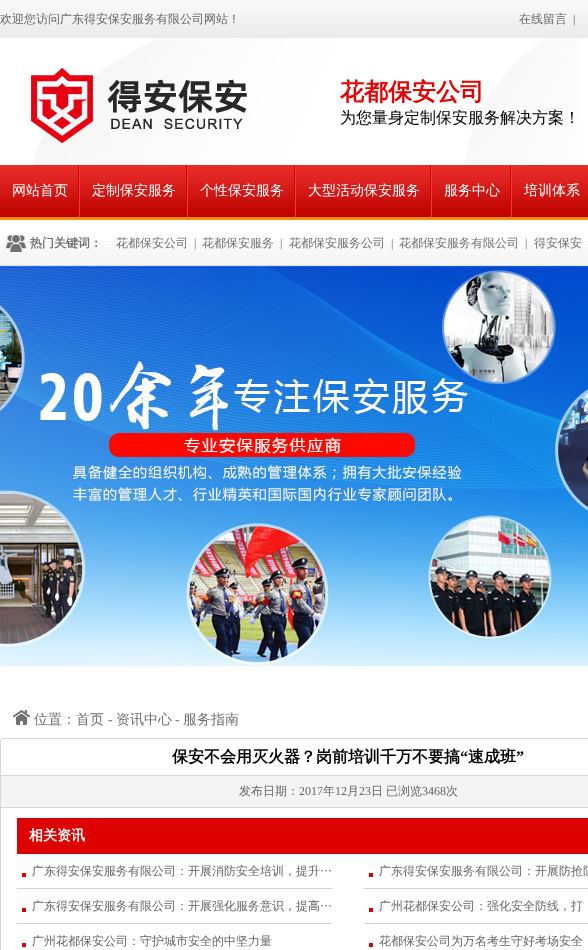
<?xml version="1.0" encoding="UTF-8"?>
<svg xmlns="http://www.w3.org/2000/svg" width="588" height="950">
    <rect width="100%" height="100%" fill="#FFFFFF"/>
    <image x="0" y="0" width="588" height="38" href="img_01.png"/>
    <text x="0" y="23" font-family="WenQuanYi Zen Hei" font-size="12" font-weight="500" fill="#666666">欢迎您访问广东得安保安服务有限公司网站！</text>
    <text x="519" y="23" font-family="WenQuanYi Zen Hei" font-size="12" font-weight="500" fill="#666666">在线留言</text>
    <text x="573" y="23" font-family="Liberation Serif" font-size="12" fill="#666666">|</text>
    <image x="33" y="38" width="547" height="127" href="img_02.png"/>
    <image x="31" y="68" width="216" height="75" href="img_03.png"/>
    <text x="340" y="100" font-family="WenQuanYi Zen Hei" font-size="24" font-weight="700" fill="#E50200">花都保安公司</text>
    <text x="340" y="123" font-family="WenQuanYi Zen Hei" font-size="16" font-weight="500" fill="#000000">为您量身定制保安服务解决方案！</text>
    <image x="0" y="165" width="588" height="55" href="img_04.png"/>
    <image x="78" y="165" width="2" height="52" href="img_05.png"/>
    <text x="12" y="195" font-family="WenQuanYi Zen Hei" font-size="14" font-weight="500" fill="#FFFFFF">网站首页</text>
    <image x="186" y="165" width="2" height="52" href="img_05.png"/>
    <text x="92" y="195" font-family="WenQuanYi Zen Hei" font-size="14" font-weight="500" fill="#FFFFFF">定制保安服务</text>
    <image x="294" y="165" width="2" height="52" href="img_05.png"/>
    <text x="200" y="195" font-family="WenQuanYi Zen Hei" font-size="14" font-weight="500" fill="#FFFFFF">个性保安服务</text>
    <image x="430" y="165" width="2" height="52" href="img_05.png"/>
    <text x="308" y="195" font-family="WenQuanYi Zen Hei" font-size="14" font-weight="500" fill="#FFFFFF">大型活动保安服务</text>
    <image x="510" y="165" width="2" height="52" href="img_05.png"/>
    <text x="444" y="195" font-family="WenQuanYi Zen Hei" font-size="14" font-weight="500" fill="#FFFFFF">服务中心</text>
    <text x="524" y="195" font-family="WenQuanYi Zen Hei" font-size="14" font-weight="500" fill="#FFFFFF">培训体系</text>
    <image x="0" y="241" width="588" height="25" href="img_06.png"/>
    <image x="6" y="235" width="20" height="17" href="img_07.png"/>
    <text x="30" y="247" font-family="WenQuanYi Zen Hei" font-size="12" font-weight="700" fill="#707070">热门关键词：</text>
    <text x="116" y="247" font-family="WenQuanYi Zen Hei" font-size="12" font-weight="500" fill="#707070">花都保安公司</text>
    <text x="194" y="247" font-family="Liberation Serif" font-size="12" fill="#707070">|</text>
    <text x="202" y="247" font-family="WenQuanYi Zen Hei" font-size="12" font-weight="500" fill="#707070">花都保安服务</text>
    <text x="280" y="247" font-family="Liberation Serif" font-size="12" fill="#707070">|</text>
    <text x="289" y="247" font-family="WenQuanYi Zen Hei" font-size="12" font-weight="500" fill="#707070">花都保安服务公司</text>
    <text x="391" y="247" font-family="Liberation Serif" font-size="12" fill="#707070">|</text>
    <text x="399" y="247" font-family="WenQuanYi Zen Hei" font-size="12" font-weight="500" fill="#707070">花都保安服务有限公司</text>
    <text x="525" y="247" font-family="Liberation Serif" font-size="12" fill="#707070">|</text>
    <text x="534" y="247" font-family="WenQuanYi Zen Hei" font-size="12" font-weight="500" fill="#707070">得安保安</text>
    <image x="0" y="266" width="588" height="400" href="img_08.png"/>
    <image x="13" y="710" width="17" height="15" href="img_09.png"/>
    <text x="34" y="724" font-family="WenQuanYi Zen Hei" font-size="14" font-weight="500" fill="#707070">位置：首页</text>
    <text x="108" y="724" font-family="Liberation Serif" font-size="14" fill="#707070">-</text>
    <text x="116" y="724" font-family="WenQuanYi Zen Hei" font-size="14" font-weight="500" fill="#707070">资讯中心</text>
    <text x="175" y="724" font-family="Liberation Serif" font-size="14" fill="#707070">-</text>
    <text x="183" y="724" font-family="WenQuanYi Zen Hei" font-size="14" font-weight="500" fill="#707070">服务指南</text>
    <rect x="0.5" y="738.5" width="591" height="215" rx="2.5" fill="none" stroke="#D7D6D6"/>
    <text x="172" y="762" font-family="WenQuanYi Zen Hei" font-size="16" font-weight="700" fill="#000000">保安不会用灭火器？岗前培训千万不要搞</text>
    <text x="460" y="762" font-family="Liberation Serif" font-size="16" font-weight="700" fill="#000000">“</text>
    <text x="468" y="762" font-family="WenQuanYi Zen Hei" font-size="16" font-weight="700" fill="#000000">速成班</text>
    <text x="516" y="762" font-family="Liberation Serif" font-size="16" font-weight="700" fill="#000000">”</text>
    <rect x="1" y="776" width="587" height="31" fill="#F4F4F4"/>
    <rect x="1" y="775" width="587" height="1" fill="#D7D6D6"/>
    <rect x="1" y="807" width="587" height="1" fill="#D7D6D6"/>
    <text x="239" y="795" font-family="WenQuanYi Zen Hei" font-size="12" font-weight="500" fill="#666666">发布日期：</text>
    <text x="299" y="795" font-family="Liberation Serif" font-size="12" fill="#666666">2017</text>
    <text x="323" y="795" font-family="WenQuanYi Zen Hei" font-size="12" font-weight="500" fill="#666666">年</text>
    <text x="335" y="795" font-family="Liberation Serif" font-size="12" fill="#666666">12</text>
    <text x="347" y="795" font-family="WenQuanYi Zen Hei" font-size="12" font-weight="500" fill="#666666">月</text>
    <text x="359" y="795" font-family="Liberation Serif" font-size="12" fill="#666666">23</text>
    <text x="371" y="795" font-family="WenQuanYi Zen Hei" font-size="12" font-weight="500" fill="#666666">日</text>
    <text x="386" y="795" font-family="WenQuanYi Zen Hei" font-size="12" font-weight="500" fill="#666666">已浏览</text>
    <text x="422" y="795" font-family="Liberation Serif" font-size="12" fill="#666666">3468</text>
    <text x="446" y="795" font-family="WenQuanYi Zen Hei" font-size="12" font-weight="500" fill="#666666">次</text>
    <rect x="17" y="818" width="571" height="36" fill="#DD0200"/>
    <text x="29" y="840" font-family="WenQuanYi Zen Hei" font-size="14" font-weight="700" fill="#FFFFFF">相关资讯</text>
    <image x="17" y="873" width="315" height="16" href="img_10.png"/>
    <text x="32" y="875" font-family="WenQuanYi Zen Hei" font-size="12" font-weight="500" fill="#666666">广东得安保安服务有限公司：开展消防安全培训，提升…</text>
    <image x="364" y="873" width="224" height="16" href="img_11.png"/>
    <text x="379" y="875" font-family="WenQuanYi Zen Hei" font-size="12" font-weight="500" fill="#666666">广东得安保安服务有限公司：开展防抢防</text>
    <image x="17" y="908" width="315" height="16" href="img_10.png"/>
    <text x="32" y="910" font-family="WenQuanYi Zen Hei" font-size="12" font-weight="500" fill="#666666">广东得安保安服务有限公司：开展强化服务意识，提高…</text>
    <image x="364" y="908" width="224" height="16" href="img_11.png"/>
    <text x="379" y="910" font-family="WenQuanYi Zen Hei" font-size="12" font-weight="500" fill="#666666">广州花都保安公司：强化安全防线，打</text>
    <rect x="22" y="943" width="4" height="4" fill="#DD0200"/>
    <text x="32" y="945" font-family="WenQuanYi Zen Hei" font-size="12" font-weight="500" fill="#666666">广州花都保安公司：守护城市安全的中坚力量</text>
    <rect x="369" y="943" width="4" height="4" fill="#DD0200"/>
    <text x="379" y="945" font-family="WenQuanYi Zen Hei" font-size="12" font-weight="500" fill="#666666">花都保安公司为万名考生守好考场安全</text>
</svg>
